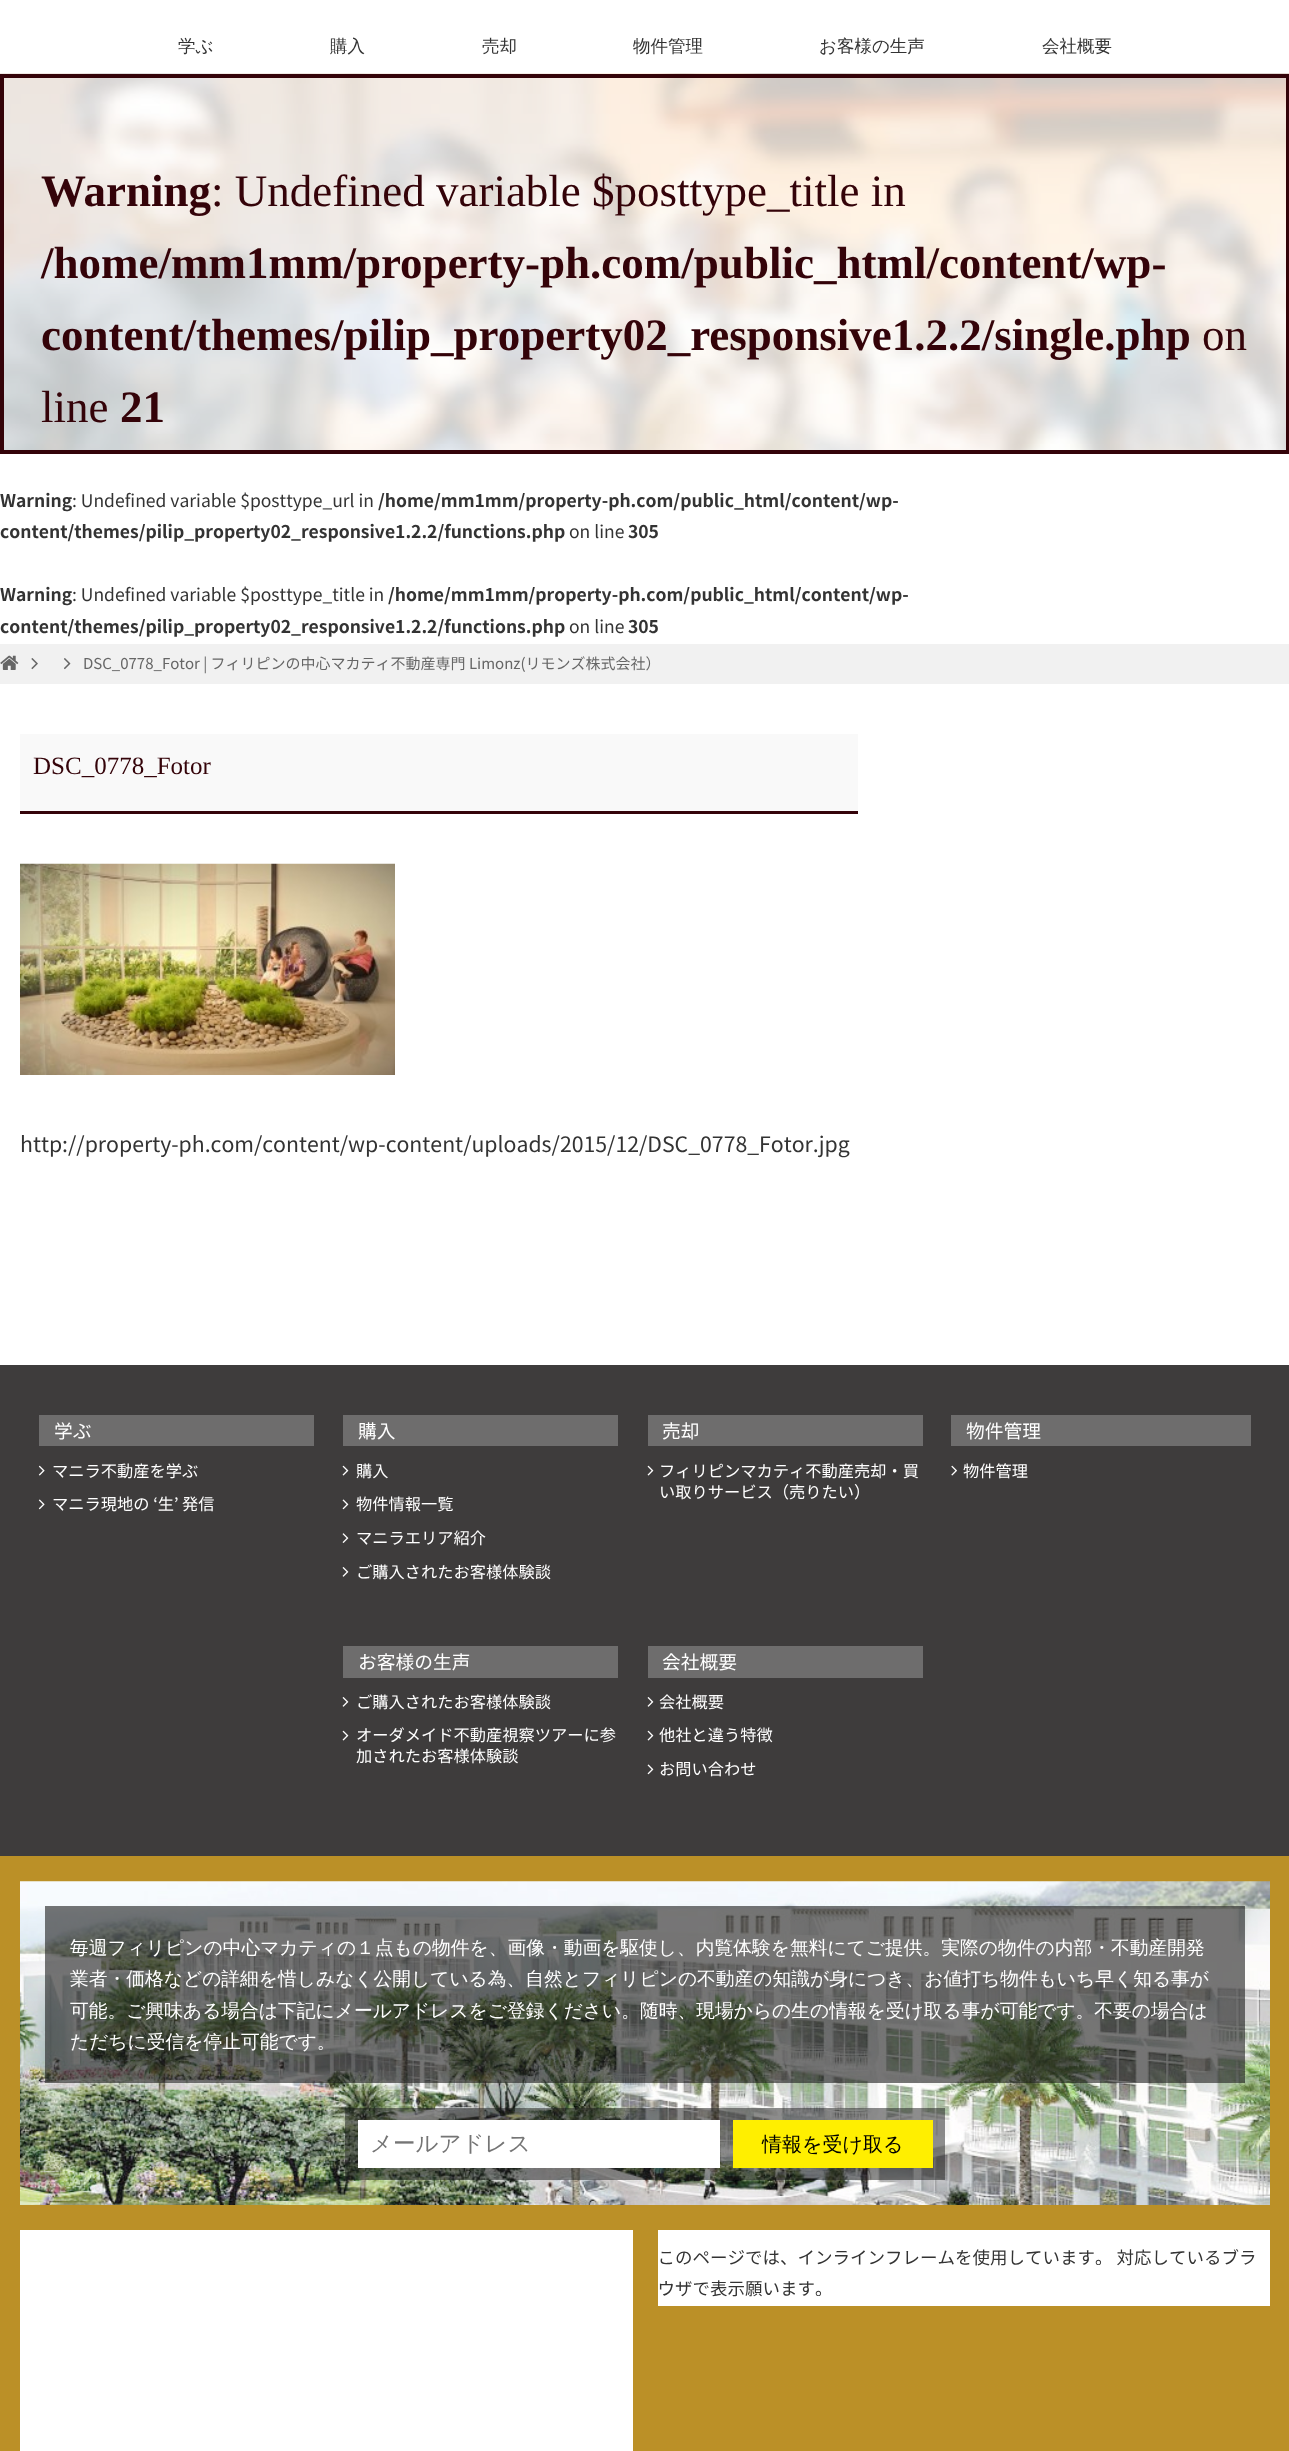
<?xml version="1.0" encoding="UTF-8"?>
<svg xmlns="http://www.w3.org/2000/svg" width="1289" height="2451">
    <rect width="100%" height="100%" fill="#FFFFFF"/>
    <text x="178" y="52" font-family="WenQuanYi Zen Hei" font-size="17.5" font-weight="500" fill="#333333">学ぶ</text>
    <text x="330" y="52" font-family="WenQuanYi Zen Hei" font-size="17.5" font-weight="500" fill="#333333">購入</text>
    <text x="482" y="52" font-family="WenQuanYi Zen Hei" font-size="17.5" font-weight="500" fill="#333333">売却</text>
    <text x="633" y="52" font-family="WenQuanYi Zen Hei" font-size="17.5" font-weight="500" fill="#333333">物件管理</text>
    <text x="819" y="52" font-family="WenQuanYi Zen Hei" font-size="17.5" font-weight="500" fill="#333333">お客様の生声</text>
    <text x="1042" y="52" font-family="WenQuanYi Zen Hei" font-size="17.5" font-weight="500" fill="#333333">会社概要</text>
    <image x="0" y="73" width="1289" height="377" href="img_01.png"/>
    <rect x="2" y="76" width="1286" height="376" fill="none" stroke="#340309" stroke-width="4"/>
    <text x="41" y="206" font-family="Liberation Serif" font-size="45" font-weight="700" fill="#340309">Warning</text>
    <text x="211" y="206" font-family="Liberation Serif" font-size="45" fill="#340309">: Undefined variable $posttype_title in</text>
    <text font-family="Liberation Serif" font-size="45" font-weight="700" fill="#340309">
        <tspan x="41" y="278">/home/mm1mm/property-ph.com/public_html/content/wp-</tspan>
        <tspan x="41" y="350">content/themes/pilip_property02_responsive1.2.2/single.php</tspan>
    </text>
    <text x="1202" y="350" font-family="Liberation Serif" font-size="45" fill="#340309">on</text>
    <text x="41" y="422" font-family="Liberation Serif" font-size="45" fill="#340309">line</text>
    <text x="120" y="422" font-family="Liberation Serif" font-size="45" font-weight="700" fill="#340309">21</text>
    <text x="0" y="507" font-family="Noto Sans CJK JP" font-size="17.5" font-weight="700" fill="#333333">Warning</text>
    <text x="72" y="507" font-family="Noto Sans CJK JP" font-size="17.5" fill="#333333">: Undefined variable $posttype_url in</text>
    <text x="378" y="507" font-family="Noto Sans CJK JP" font-size="17.5" font-weight="700" fill="#333333">/home/mm1mm/property-ph.com/public_html/content/wp-</text>
    <text x="0" y="538" font-family="Noto Sans CJK JP" font-size="17.5" font-weight="700" fill="#333333">content/themes/pilip_property02_responsive1.2.2/functions.php</text>
    <text x="569" y="538" font-family="Noto Sans CJK JP" font-size="17.5" fill="#333333">on line</text>
    <text x="628" y="538" font-family="Noto Sans CJK JP" font-size="17.5" font-weight="700" fill="#333333">305</text>
    <text x="0" y="601" font-family="Noto Sans CJK JP" font-size="17.5" font-weight="700" fill="#333333">Warning</text>
    <text x="72" y="601" font-family="Noto Sans CJK JP" font-size="17.5" fill="#333333">: Undefined variable $posttype_title in</text>
    <text x="388" y="601" font-family="Noto Sans CJK JP" font-size="17.5" font-weight="700" fill="#333333">/home/mm1mm/property-ph.com/public_html/content/wp-</text>
    <text x="0" y="633" font-family="Noto Sans CJK JP" font-size="17.5" font-weight="700" fill="#333333">content/themes/pilip_property02_responsive1.2.2/functions.php</text>
    <text x="569" y="633" font-family="Noto Sans CJK JP" font-size="17.5" fill="#333333">on line</text>
    <text x="628" y="633" font-family="Noto Sans CJK JP" font-size="17.5" font-weight="700" fill="#333333">305</text>
    <rect x="0" y="644" width="1289" height="40" fill="#F1F1F1"/>
    <image x="0" y="655" width="19" height="15" href="img_02.png"/>
    <image x="31" y="658" width="7" height="12" href="img_03.png"/>
    <image x="64" y="658" width="7" height="12" href="img_04.png"/>
    <text x="83" y="669" font-family="Noto Sans CJK JP" font-size="15" fill="#666666">DSC_0778_Fotor | フィリピンの中心マカティ不動産専門 Limonz(リモンズ株式会社）</text>
    <rect x="20" y="734" width="838" height="77" fill="#F9F9F9"/>
    <rect x="20" y="811" width="838" height="3" fill="#340309"/>
    <text x="33" y="774" font-family="Liberation Serif" font-size="25" fill="#340309">DSC_0778_Fotor</text>
    <image x="20" y="863" width="375" height="212" href="img_05.png"/>
    <text x="20" y="1152" font-family="Noto Sans CJK JP" font-size="21.25" fill="#333333">http://property-ph.com/content/wp-content/uploads/2015/12/DSC_0778_Fotor.jpg</text>
    <rect x="0" y="1856" width="1289" height="595" fill="#BB9027"/>
    <rect x="0" y="1365" width="1289" height="491" fill="#3E3C3C"/>
    <rect x="39" y="1415" width="275" height="31" fill="#6E6D6D"/>
    <text x="54" y="1438" font-family="Noto Sans CJK JP" font-size="18.75" fill="#FFFFFF">学ぶ</text>
    <image x="38" y="1465" width="7" height="11" href="img_06.png"/>
    <text x="52" y="1477" font-family="Noto Sans CJK JP" font-size="16.25" fill="#FFFFFF">マニラ不動産を学ぶ</text>
    <image x="38" y="1499" width="7" height="11" href="img_07.png"/>
    <text x="52" y="1510" font-family="Noto Sans CJK JP" font-size="16.25" fill="#FFFFFF">マニラ現地の ‘生’ 発信</text>
    <rect x="343" y="1415" width="275" height="31" fill="#6E6D6D"/>
    <text x="358" y="1438" font-family="Noto Sans CJK JP" font-size="18.75" fill="#FFFFFF">購入</text>
    <image x="342" y="1465" width="7" height="11" href="img_08.png"/>
    <text x="356" y="1477" font-family="Noto Sans CJK JP" font-size="16.25" fill="#FFFFFF">購入</text>
    <image x="342" y="1499" width="7" height="11" href="img_09.png"/>
    <text x="356" y="1510" font-family="Noto Sans CJK JP" font-size="16.25" fill="#FFFFFF">物件情報一覧</text>
    <image x="342" y="1533" width="7" height="10" href="img_10.png"/>
    <text x="356" y="1544" font-family="Noto Sans CJK JP" font-size="16.25" fill="#FFFFFF">マニラエリア紹介</text>
    <image x="342" y="1567" width="7" height="10" href="img_11.png"/>
    <text x="356" y="1578" font-family="Noto Sans CJK JP" font-size="16.25" fill="#FFFFFF">ご購入されたお客様体験談</text>
    <rect x="648" y="1415" width="275" height="31" fill="#6E6D6D"/>
    <text x="662" y="1438" font-family="Noto Sans CJK JP" font-size="18.75" fill="#FFFFFF">売却</text>
    <image x="647" y="1465" width="7" height="11" href="img_08.png"/>
    <text font-family="Noto Sans CJK JP" font-size="16.25" fill="#FFFFFF">
        <tspan x="659" y="1477">フィリピンマカティ不動産売却・買</tspan>
        <tspan x="659" y="1498">い取りサービス（売りたい）</tspan>
    </text>
    <rect x="951" y="1415" width="300" height="31" fill="#6E6D6D"/>
    <text x="966" y="1438" font-family="Noto Sans CJK JP" font-size="18.75" fill="#FFFFFF">物件管理</text>
    <image x="951" y="1465" width="6" height="11" href="img_12.png"/>
    <text x="963" y="1477" font-family="Noto Sans CJK JP" font-size="16.25" fill="#FFFFFF">物件管理</text>
    <rect x="343" y="1646" width="275" height="32" fill="#6E6D6D"/>
    <text x="358" y="1669" font-family="Noto Sans CJK JP" font-size="18.75" fill="#FFFFFF">お客様の生声</text>
    <image x="342" y="1697" width="7" height="10" href="img_11.png"/>
    <text x="356" y="1708" font-family="Noto Sans CJK JP" font-size="16.25" fill="#FFFFFF">ご購入されたお客様体験談</text>
    <image x="342" y="1730" width="7" height="11" href="img_08.png"/>
    <text font-family="Noto Sans CJK JP" font-size="16.25" fill="#FFFFFF">
        <tspan x="356" y="1741">オーダメイド不動産視察ツアーに参</tspan>
        <tspan x="356" y="1762">加されたお客様体験談</tspan>
    </text>
    <rect x="648" y="1646" width="275" height="32" fill="#6E6D6D"/>
    <text x="662" y="1669" font-family="Noto Sans CJK JP" font-size="18.75" fill="#FFFFFF">会社概要</text>
    <image x="647" y="1697" width="7" height="10" href="img_11.png"/>
    <text x="659" y="1708" font-family="Noto Sans CJK JP" font-size="16.25" fill="#FFFFFF">会社概要</text>
    <image x="647" y="1730" width="7" height="11" href="img_08.png"/>
    <text x="659" y="1741" font-family="Noto Sans CJK JP" font-size="16.25" fill="#FFFFFF">他社と違う特徴</text>
    <image x="647" y="1764" width="7" height="11" href="img_09.png"/>
    <text x="659" y="1775" font-family="Noto Sans CJK JP" font-size="16.25" fill="#FFFFFF">お問い合わせ</text>
    <image x="20" y="1881" width="1250" height="324" href="img_13.png"/>
    <rect x="45" y="1906" width="1200" height="177" fill="#1B1B1B" fill-opacity="0.6"/>
    <text font-family="WenQuanYi Zen Hei" font-size="18.75" font-weight="500" fill="#FFFFFF">
        <tspan x="70" y="1954">毎週フィリピンの中心マカティの１点もの物件を、画像・動画を駆使し、内覧体験を無料にてご提供。実際の物件の内部・不動産開発</tspan>
        <tspan x="70" y="1985">業者・価格などの詳細を惜しみなく公開している為、自然とフィリピンの不動産の知識が身につき、お値打ち物件もいち早く知る事が</tspan>
        <tspan x="70" y="2017">可能。ご興味ある場合は下記にメールアドレスをご登録ください。随時、現場からの生の情報を受け取る事が可能です。不要の場合は</tspan>
        <tspan x="70" y="2048">ただちに受信を停止可能です。</tspan>
    </text>
    <rect x="345" y="2108" width="600" height="72" fill="#1B1B1B" fill-opacity="0.5"/>
    <rect x="358" y="2120" width="362" height="48" fill="#FFFFFF"/>
    <text x="370" y="2151" font-family="WenQuanYi Zen Hei" font-size="22.5" font-weight="500" fill="#757575">メールアドレス</text>
    <rect x="733" y="2120" width="200" height="48" fill="#FFEF00"/>
    <text x="762" y="2151" font-family="WenQuanYi Zen Hei" font-size="20" font-weight="500" fill="#000000">情報を受け取る</text>
    <rect x="20" y="2230" width="613" height="221" fill="#FFFFFF"/>
    <rect x="658" y="2230" width="612" height="76" fill="#FFFFFF"/>
    <image x="659" y="2249" width="596" height="48" href="img_14.png"/>
</svg>
